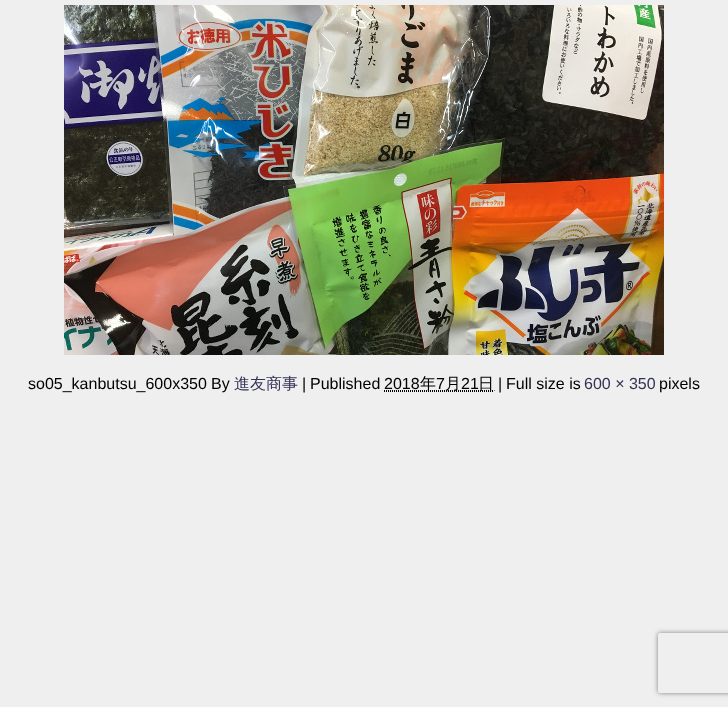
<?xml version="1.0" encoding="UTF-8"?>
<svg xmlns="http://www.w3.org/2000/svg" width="728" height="707">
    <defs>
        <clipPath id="clip1"><path d="M 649 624 H 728 V 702 H 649 Z M 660 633 H 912 C 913 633 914 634 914 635 V 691 C 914 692 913 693 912 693 H 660 C 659 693 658 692 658 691 V 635 C 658 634 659 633 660 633 Z" clip-rule="evenodd"/></clipPath>
        <filter id="blur1" x="-50%" y="-200%" width="200%" height="500%"><feGaussianBlur stdDeviation="2.5"/></filter>
    </defs>
    <rect width="100%" height="100%" fill="#EFEFEF"/>
    <image x="64" y="5" width="600" height="350" href="img_01.png"/>
    <text x="28" y="389" font-family="Liberation Sans" font-size="16" fill="#000000">so05_kanbutsu_600x350</text>
    <text x="211" y="389" font-family="Liberation Sans" font-size="16" fill="#000000">By</text>
    <text x="234" y="389" font-family="WenQuanYi Zen Hei" font-size="16" font-weight="500" fill="#333355">進友商事</text>
    <text x="302" y="389" font-family="Liberation Sans" font-size="16" fill="#000000">|</text>
    <text x="310" y="389" font-family="Liberation Sans" font-size="16" fill="#000000">Published</text>
    <text x="384" y="389" font-family="Liberation Sans" font-size="16" fill="#000000">2018</text>
    <path d="M 384 390.5 H 494.5" fill="none" stroke="#000000" stroke-dasharray="1 1"/>
    <text x="420" y="389" font-family="WenQuanYi Zen Hei" font-size="16" font-weight="500" fill="#000000">年</text>
    <text x="436" y="389" font-family="Liberation Sans" font-size="16" fill="#000000">7</text>
    <path d="M 384 391.5 H 494" fill="none" stroke="#000000" stroke-dasharray="1 1"/>
    <text x="445" y="389" font-family="WenQuanYi Zen Hei" font-size="16" font-weight="500" fill="#000000">月</text>
    <text x="461" y="389" font-family="Liberation Sans" font-size="16" fill="#000000">21</text>
    <text x="478" y="389" font-family="WenQuanYi Zen Hei" font-size="16" font-weight="500" fill="#000000">日</text>
    <text x="498" y="389" font-family="Liberation Sans" font-size="16" fill="#000000">|</text>
    <text x="506" y="389" font-family="Liberation Sans" font-size="16" fill="#000000">Full size is</text>
    <text x="584" y="389" font-family="Liberation Sans" font-size="16" fill="#333355">600 × 350</text>
    <text x="659" y="389" font-family="Liberation Sans" font-size="16" fill="#000000">pixels</text>
    <g clip-path="url(#clip1)">
        <rect x="658" y="633" width="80" height="60" rx="2" fill="#808080" filter="url(#blur1)"/>
    </g>
</svg>
